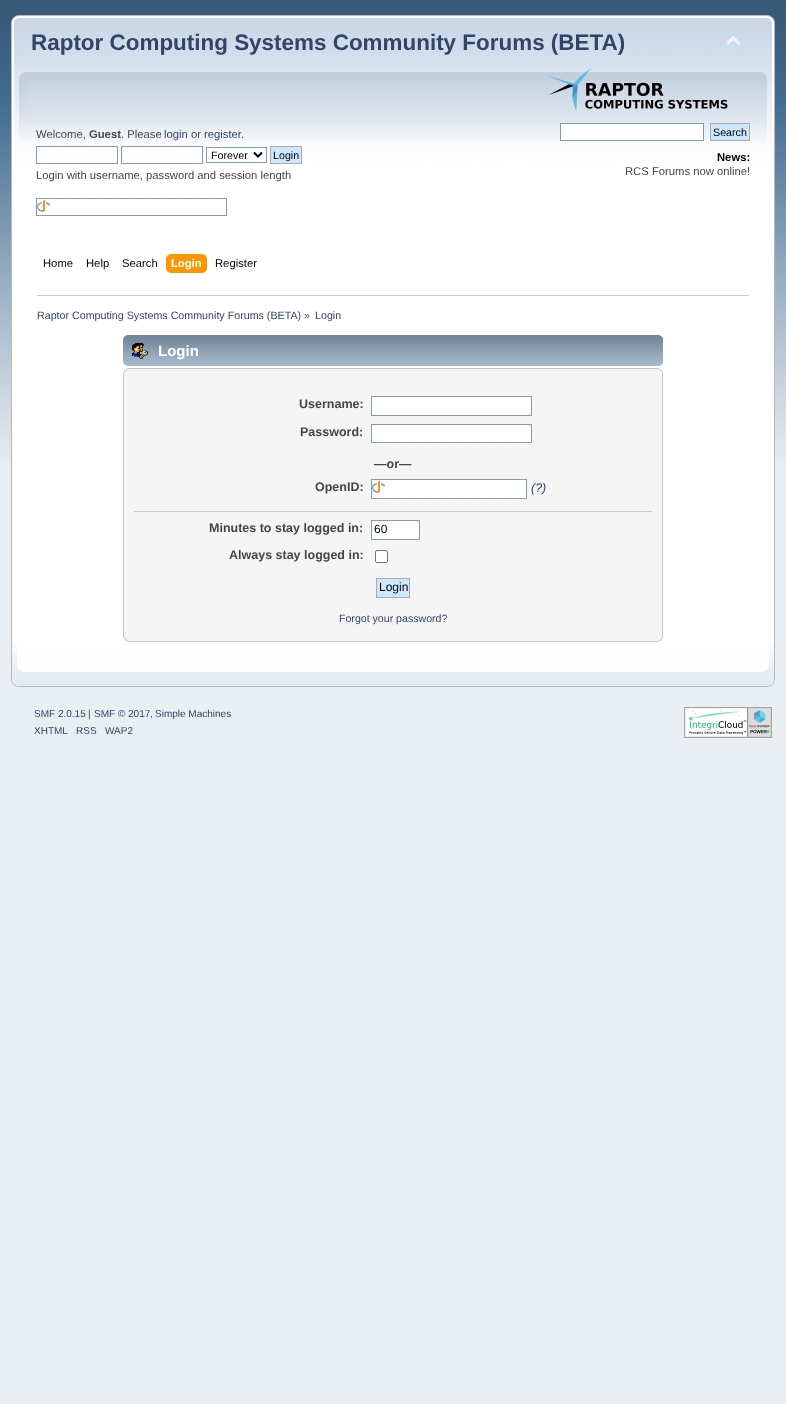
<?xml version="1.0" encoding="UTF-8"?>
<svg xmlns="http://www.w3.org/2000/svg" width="786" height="1404">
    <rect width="100%" height="100%" fill="#E9EEF2"/>
    <image x="0" y="0" width="786" height="462" href="img_01.png"/>
    <image x="11" y="15" width="750" height="274" href="img_02.png"/>
    <image x="761" y="15" width="14" height="274" href="img_03.png"/>
    <text x="31" y="50" font-family="Liberation Sans" font-size="22.45" font-weight="700" fill="#334466">Raptor Computing Systems Community Forums (BETA)</text>
    <image x="726" y="35" width="15" height="12" href="img_04.png"/>
    <image x="546" y="68" width="182" height="44" href="img_05.png"/>
    <text x="36" y="138" font-family="Liberation Sans" font-size="11.25" fill="#444444">Welcome,</text>
    <text x="89" y="138" font-family="Liberation Sans" font-size="11.25" font-weight="700" fill="#444444">Guest</text>
    <text x="121" y="138" font-family="Liberation Sans" font-size="11.25" fill="#444444">. Please</text>
    <text x="164" y="138" font-family="Liberation Sans" font-size="11.25" fill="#334466">login</text>
    <text x="191" y="138" font-family="Liberation Sans" font-size="11.25" fill="#444444">or</text>
    <text x="204" y="138" font-family="Liberation Sans" font-size="11.25" fill="#334466">register</text>
    <text x="241" y="138" font-family="Liberation Sans" font-size="11.25" fill="#444444">.</text>
    <rect x="37" y="147" width="80" height="9" fill="#FFFFFF"/>
    <rect x="36.5" y="146.5" width="81" height="17" fill="none" stroke="#7F9DB9"/>
    <rect x="122" y="147" width="80" height="9" fill="#FFFFFF"/>
    <rect x="121.5" y="146.5" width="81" height="17" fill="none" stroke="#7F9DB9"/>
    <rect x="207" y="148" width="59" height="8" fill="#FFFFFF"/>
    <rect x="206.5" y="147.5" width="60" height="15" fill="none" stroke="#7F9DB9"/>
    <path d="M 254 152.5 L 258 156.5 L 262 152.5" fill="none" stroke="#000000" stroke-width="2"/>
    <text x="211" y="159" font-family="Liberation Sans" font-size="10.7" fill="#000000">Forever</text>
    <rect x="270.5" y="146.5" width="31" height="17" fill="#CDE7FF" stroke="#AAAAAA"/>
    <text x="273" y="159" font-family="Liberation Sans" font-size="10.7" fill="#000000">Login</text>
    <text x="36" y="179" font-family="Liberation Sans" font-size="11.25" fill="#444444">Login with username, password and session length</text>
    <image x="37" y="199" width="13" height="13" href="img_06.png"/>
    <rect x="36.5" y="198.5" width="190" height="17" fill="none" stroke="#7F9DB9"/>
    <rect x="560.5" y="123.5" width="143" height="17" fill="#FFFFFF" stroke="#7F9DB9"/>
    <rect x="710.5" y="123.5" width="39" height="17" fill="#CDE7FF" stroke="#AAAAAA"/>
    <text x="713" y="136" font-family="Liberation Sans" font-size="10.7" fill="#000000">Search</text>
    <text x="717" y="161" font-family="Liberation Sans" font-size="11.25" font-weight="700" fill="#000000">News:</text>
    <text x="625" y="175" font-family="Liberation Sans" font-size="11.25" fill="#444444">RCS Forums now online!</text>
    <text x="43" y="267" font-family="Liberation Sans" font-size="11.25" fill="#000000">Home</text>
    <text x="86" y="267" font-family="Liberation Sans" font-size="11.25" fill="#000000">Help</text>
    <text x="122" y="267" font-family="Liberation Sans" font-size="11.25" fill="#000000">Search</text>
    <image x="171" y="254" width="36" height="19" href="img_07.png"/>
    <image x="166" y="254" width="5" height="19" href="img_08.png"/>
    <text x="171" y="267" font-family="Liberation Sans" font-size="11.25" font-weight="700" fill="#FFFFFF">Login</text>
    <text x="215" y="267" font-family="Liberation Sans" font-size="11.25" fill="#000000">Register</text>
    <rect x="12" y="289" width="762" height="354" fill="#FFFFFF"/>
    <rect x="11" y="289" width="1" height="354" fill="#B7B7B7"/>
    <rect x="774" y="289" width="1" height="354" fill="#B7B7B7"/>
    <rect x="37" y="295" width="712" height="1" fill="#CCCCCC"/>
    <text x="37" y="319" font-family="Liberation Sans" font-size="10.7" fill="#334466">Raptor Computing Systems Community Forums (BETA)</text>
    <text x="304" y="319" font-family="Liberation Sans" font-size="10.7" fill="#444444">»</text>
    <text x="315" y="319" font-family="Liberation Sans" font-size="10.7" fill="#334466">Login</text>
    <image x="123" y="335" width="535" height="31" href="img_09.png"/>
    <image x="658" y="335" width="5" height="31" href="img_10.png"/>
    <image x="132" y="343" width="16" height="16" href="img_11.png"/>
    <text x="158" y="356" font-family="Liberation Sans" font-size="15" font-weight="700" fill="#FFFFFF">Login</text>
    <image x="123" y="368" width="534" height="11" href="img_12.png"/>
    <image x="657" y="368" width="6" height="11" href="img_13.png"/>
    <rect x="124" y="379" width="538" height="252" fill="#F5F5F5"/>
    <rect x="662" y="379" width="1" height="252" fill="#C5C5C5"/>
    <rect x="123" y="379" width="1" height="252" fill="#C5C5C5"/>
    <text x="299" y="408" font-family="Liberation Sans" font-size="12.5" font-weight="700" fill="#444444">Username:</text>
    <rect x="371.5" y="396.5" width="160" height="19" fill="#FFFFFF" stroke="#7F9DB9"/>
    <text x="300" y="436" font-family="Liberation Sans" font-size="12.5" font-weight="700" fill="#444444">Password:</text>
    <rect x="371.5" y="424.5" width="160" height="18" fill="#FFFFFF" stroke="#7F9DB9"/>
    <text x="374" y="468" font-family="Liberation Sans" font-size="12.5" font-weight="700" fill="#444444">—or—</text>
    <text x="315" y="491" font-family="Liberation Sans" font-size="12.5" font-weight="700" fill="#444444">OpenID:</text>
    <rect x="372" y="480" width="154" height="18" fill="#FFFFFF"/>
    <image x="372" y="480" width="13" height="13" href="img_06.png"/>
    <rect x="371.5" y="479.5" width="155" height="19" fill="none" stroke="#7F9DB9"/>
    <text x="531" y="492" font-family="Liberation Sans" font-size="12.5" font-style="italic" fill="#334466">(?)</text>
    <rect x="134" y="511" width="518" height="1" fill="#CCCCCC"/>
    <text x="209" y="532" font-family="Liberation Sans" font-size="12.5" font-weight="700" fill="#444444">Minutes to stay logged in:</text>
    <rect x="371.5" y="520.5" width="48" height="19" fill="#FFFFFF" stroke="#7F9DB9"/>
    <text x="374" y="533" font-family="Liberation Sans" font-size="12" fill="#000000">60</text>
    <text x="229" y="559" font-family="Liberation Sans" font-size="12.5" font-weight="700" fill="#444444">Always stay logged in:</text>
    <rect x="375.5" y="550.5" width="12" height="12" rx="1.5" fill="#FFFFFF" stroke="#767676"/>
    <rect x="376.5" y="578.5" width="33" height="19" fill="#CDE7FF" stroke="#AAAAAA"/>
    <text x="379" y="591" font-family="Liberation Sans" font-size="12" fill="#000000">Login</text>
    <text x="339" y="622" font-family="Liberation Sans" font-size="10.6" fill="#334466">Forgot your password?</text>
    <image x="123" y="631" width="534" height="11" href="img_14.png"/>
    <image x="657" y="631" width="6" height="11" href="img_15.png"/>
    <image x="11" y="643" width="752" height="44" href="img_16.png"/>
    <image x="763" y="643" width="12" height="44" href="img_17.png"/>
    <text x="34" y="717" font-family="Liberation Sans" font-size="10" fill="#334466">SMF 2.0.15</text>
    <text x="88" y="717" font-family="Liberation Sans" font-size="10" fill="#444444">|</text>
    <text x="94" y="717" font-family="Liberation Sans" font-size="10" fill="#334466">SMF © 2017</text>
    <text x="150" y="717" font-family="Liberation Sans" font-size="10" fill="#444444">,</text>
    <text x="155" y="717" font-family="Liberation Sans" font-size="10" fill="#334466">Simple Machines</text>
    <text x="34" y="734" font-family="Liberation Sans" font-size="10" fill="#334466">XHTML</text>
    <text x="76" y="734" font-family="Liberation Sans" font-size="10" fill="#334466">RSS</text>
    <text x="105" y="734" font-family="Liberation Sans" font-size="10" fill="#334466">WAP2</text>
    <image x="684" y="707" width="88" height="31" href="img_18.png"/>
</svg>
